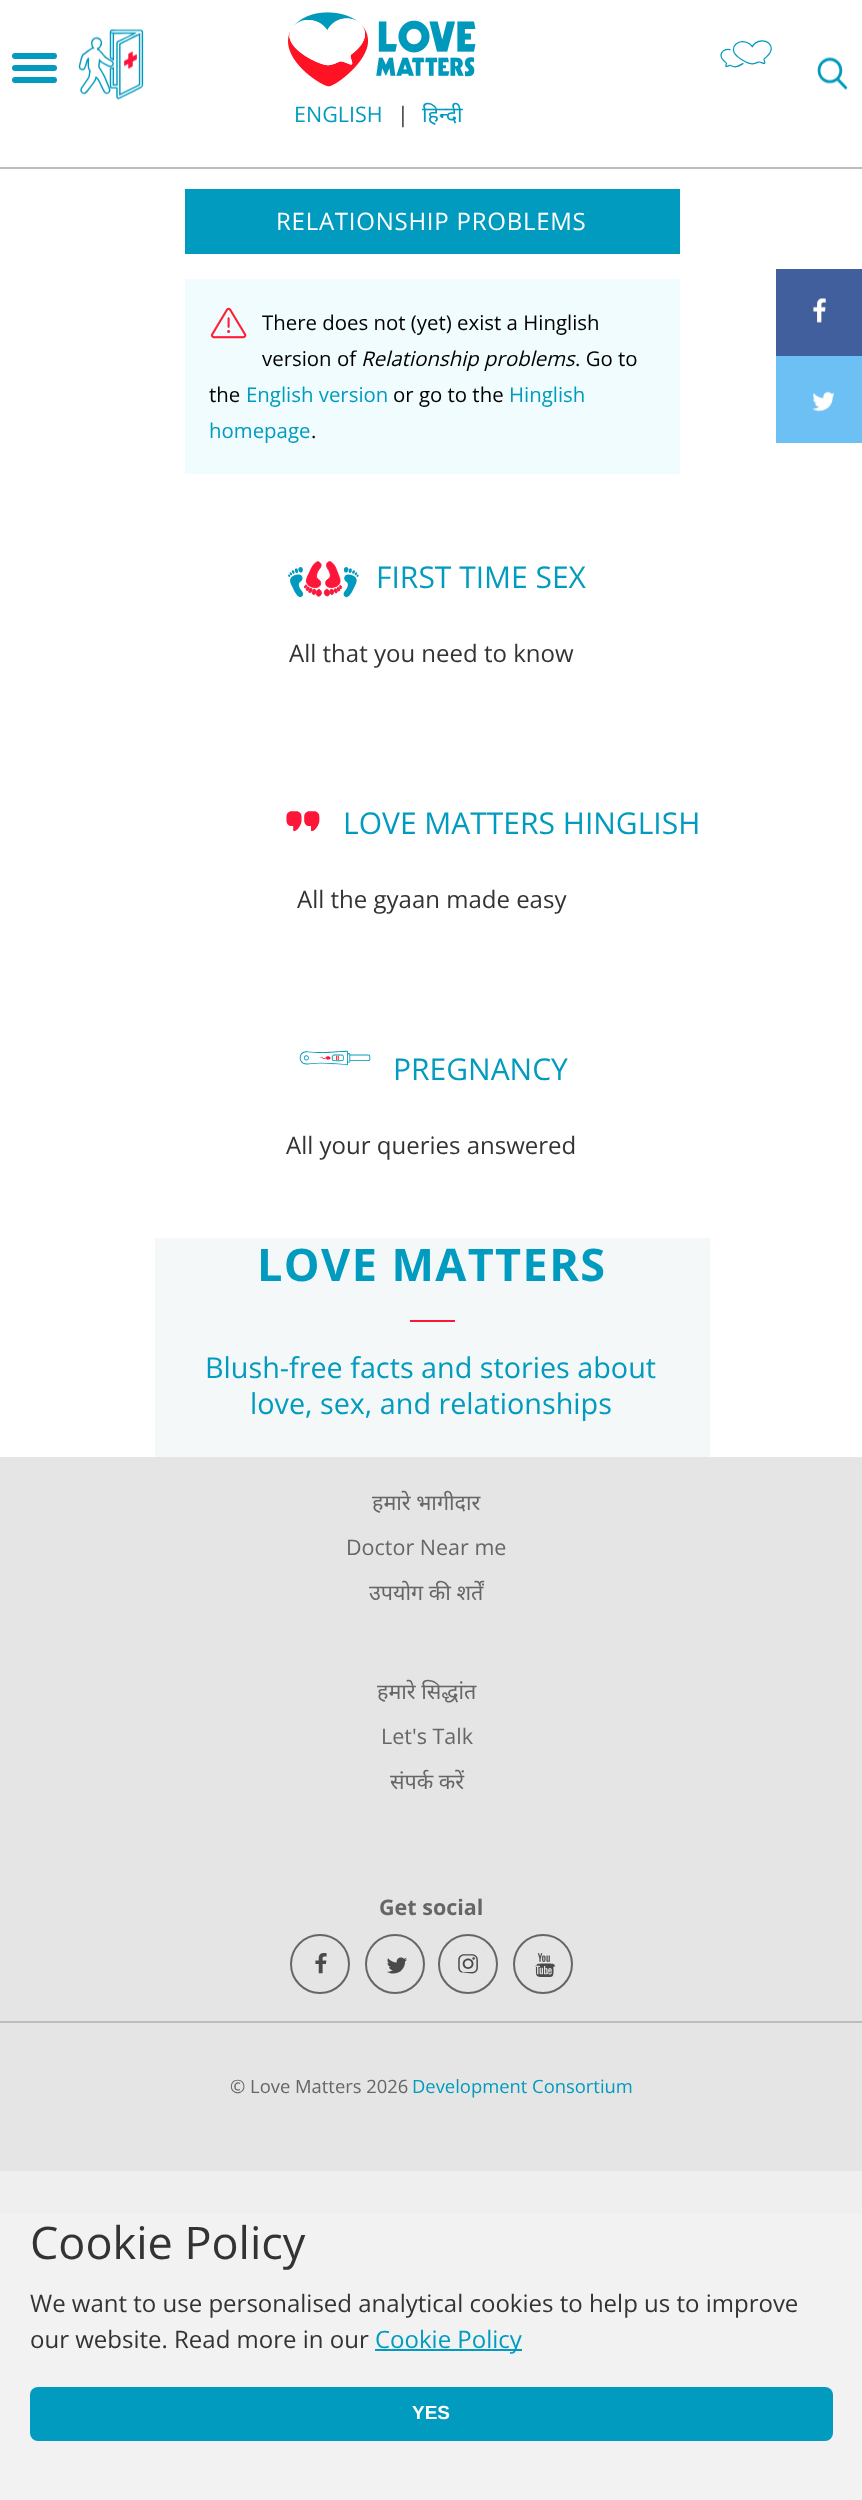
<?xml version="1.0" encoding="UTF-8"?>
<svg xmlns="http://www.w3.org/2000/svg" width="862" height="2500">
    <rect width="100%" height="100%" fill="#FFFFFF"/>
    <rect x="0" y="2213" width="862" height="287" fill="#F2F2F2"/>
    <rect x="0" y="167" width="862" height="2" fill="#BCBCBC"/>
    <rect x="12" y="53" width="45" height="6" rx="3" fill="#009BBE"/>
    <rect x="12" y="65" width="45" height="6" rx="3" fill="#009BBE"/>
    <rect x="12" y="77" width="45" height="6" rx="3" fill="#009BBE"/>
    <image x="78" y="29" width="66" height="71" href="img_01.png"/>
    <image x="817" y="57" width="31" height="33" href="img_02.png"/>
    <image x="288" y="12" width="188" height="75" href="img_03.png"/>
    <image x="720" y="40" width="52" height="28" href="img_04.png"/>
    <text x="294" y="122" font-family="Open Sans" font-size="21.5" fill="#009BBE">ENGLISH</text>
    <text x="397" y="122" font-family="Open Sans" font-size="21.5" fill="#333333">|</text>
    <text x="422" y="122" font-family="Noto Sans" font-size="21.5" fill="#009BBE">हिन्दी</text>
    <rect x="185" y="189" width="495" height="65" fill="#009BBE"/>
    <text x="276" y="230" font-family="Open Sans" font-size="24" letter-spacing="0.75" fill="#FFFFFF">RELATIONSHIP PROBLEMS</text>
    <rect x="185" y="279" width="495" height="195" fill="#F1FCFF"/>
    <image x="211" y="307" width="36" height="32" href="img_05.png"/>
    <text font-family="Open Sans" font-size="20.4" fill="#000000">
        <tspan x="262" y="330">There does not (yet) exist a Hinglish</tspan>
        <tspan x="262" y="366">version of</tspan>
    </text>
    <text x="361" y="366" font-family="Open Sans" font-size="20.4" font-style="italic" fill="#000000">Relationship problems</text>
    <text x="575" y="366" font-family="Open Sans" font-size="20.4" fill="#000000">. Go to</text>
    <text x="209" y="402" font-family="Open Sans" font-size="20.4" fill="#000000">the</text>
    <text x="246" y="402" font-family="Open Sans" font-size="20.4" fill="#009BBE">English version</text>
    <text x="393" y="402" font-family="Open Sans" font-size="20.4" fill="#000000">or go to the</text>
    <text x="509" y="402" font-family="Open Sans" font-size="20.4" fill="#009BBE">Hinglish</text>
    <text x="209" y="438" font-family="Open Sans" font-size="20.4" fill="#009BBE">homepage</text>
    <text x="311" y="438" font-family="Open Sans" font-size="20.4" fill="#000000">.</text>
    <rect x="776" y="269" width="86" height="87" fill="#415F9C"/>
    <image x="813" y="298" width="13" height="25" href="img_06.png"/>
    <rect x="776" y="356" width="86" height="87" fill="#6CC0F4"/>
    <image x="812" y="391" width="22" height="21" href="img_07.png"/>
    <image x="288" y="561" width="71" height="37" href="img_08.png"/>
    <text x="376" y="588" font-family="Open Sans" font-size="30" fill="#009BBE">FIRST TIME SEX</text>
    <text x="289" y="662" font-family="Open Sans" font-size="24" fill="#333333">All that you need to know</text>
    <image x="286" y="811" width="34" height="21" href="img_09.png"/>
    <text x="343" y="834" font-family="Open Sans" font-size="30" fill="#009BBE">LOVE MATTERS HINGLISH</text>
    <text x="297" y="908" font-family="Open Sans" font-size="24" fill="#333333">All the gyaan made easy</text>
    <image x="299" y="1050" width="72" height="15" href="img_10.png"/>
    <text x="393" y="1080" font-family="Open Sans" font-size="30" fill="#009BBE">PREGNANCY</text>
    <text x="286" y="1154" font-family="Open Sans" font-size="24" fill="#333333">All your queries answered</text>
    <rect x="155" y="1238" width="555" height="219" fill="#F4F8F9"/>
    <text x="257" y="1281" font-family="Open Sans" font-size="45" font-weight="700" letter-spacing="1.4" fill="#009BBE">LOVE MATTERS</text>
    <rect x="410" y="1320" width="45" height="2" fill="#FD153A"/>
    <text x="205" y="1378" font-family="Open Sans" font-size="28.75" fill="#009BBE">Blush-free facts and stories about</text>
    <text x="250" y="1414" font-family="Open Sans" font-size="28.75" fill="#009BBE">love, sex, and relationships</text>
    <rect x="0" y="1457" width="862" height="714" fill="#E5E5E5"/>
    <rect x="0" y="2171" width="862" height="42" fill="#EFEFEF"/>
    <text x="372" y="1510" font-family="Noto Sans" font-size="21.5" fill="#666666">हमारे भागीदार</text>
    <text x="346" y="1555" font-family="Open Sans" font-size="21.5" fill="#666666">Doctor Near me</text>
    <text x="369" y="1600" font-family="Noto Sans" font-size="21.5" fill="#666666">उपयोग की शर्तें</text>
    <text x="377" y="1699" font-family="Noto Sans" font-size="21.5" fill="#666666">हमारे सिद्धांत</text>
    <text x="381" y="1744" font-family="Open Sans" font-size="21.5" fill="#666666">Let's Talk</text>
    <text x="390" y="1789" font-family="Noto Sans" font-size="21.5" fill="#666666">संपर्क करें</text>
    <text x="379" y="1915" font-family="Open Sans" font-size="21.5" font-weight="700" fill="#666666">Get social</text>
    <circle cx="320" cy="1964" r="29" fill="none" stroke="#666666" stroke-width="2"/>
    <image x="315" y="1953" width="12" height="21" href="img_11.png"/>
    <circle cx="395" cy="1964" r="29" fill="none" stroke="#666666" stroke-width="2"/>
    <image x="387" y="1957" width="20" height="17" href="img_12.png"/>
    <circle cx="468" cy="1964" r="29" fill="none" stroke="#666666" stroke-width="2"/>
    <image x="458" y="1954" width="20" height="20" href="img_13.png"/>
    <circle cx="543" cy="1964" r="29" fill="none" stroke="#666666" stroke-width="2"/>
    <image x="535" y="1953" width="20" height="24" href="img_14.png"/>
    <rect x="0" y="2021" width="862" height="2" fill="#BCBCBC"/>
    <text x="230" y="2093" font-family="Open Sans" font-size="18.4" fill="#666666">© Love Matters 2026</text>
    <text x="412" y="2093" font-family="Open Sans" font-size="18.4" fill="#009BBE">Development Consortium</text>
    <text x="30" y="2259" font-family="Open Sans" font-size="45" fill="#333333">Cookie Policy</text>
    <text font-family="Open Sans" font-size="24" fill="#333333">
        <tspan x="30" y="2312">We want to use personalised analytical cookies to help us to improve</tspan>
        <tspan x="30" y="2348">our website. Read more in our</tspan>
    </text>
    <rect x="375" y="2349" width="147" height="2" fill="#009BBE"/>
    <text x="375" y="2348" font-family="Open Sans" font-size="24" fill="#009BBE">Cookie Policy</text>
    <rect x="30" y="2387" width="803" height="54" rx="8" fill="#009BBE"/>
    <text x="412" y="2419" font-family="Liberation Sans" font-size="19" font-weight="700" fill="#FFFFFF">YES</text>
</svg>
